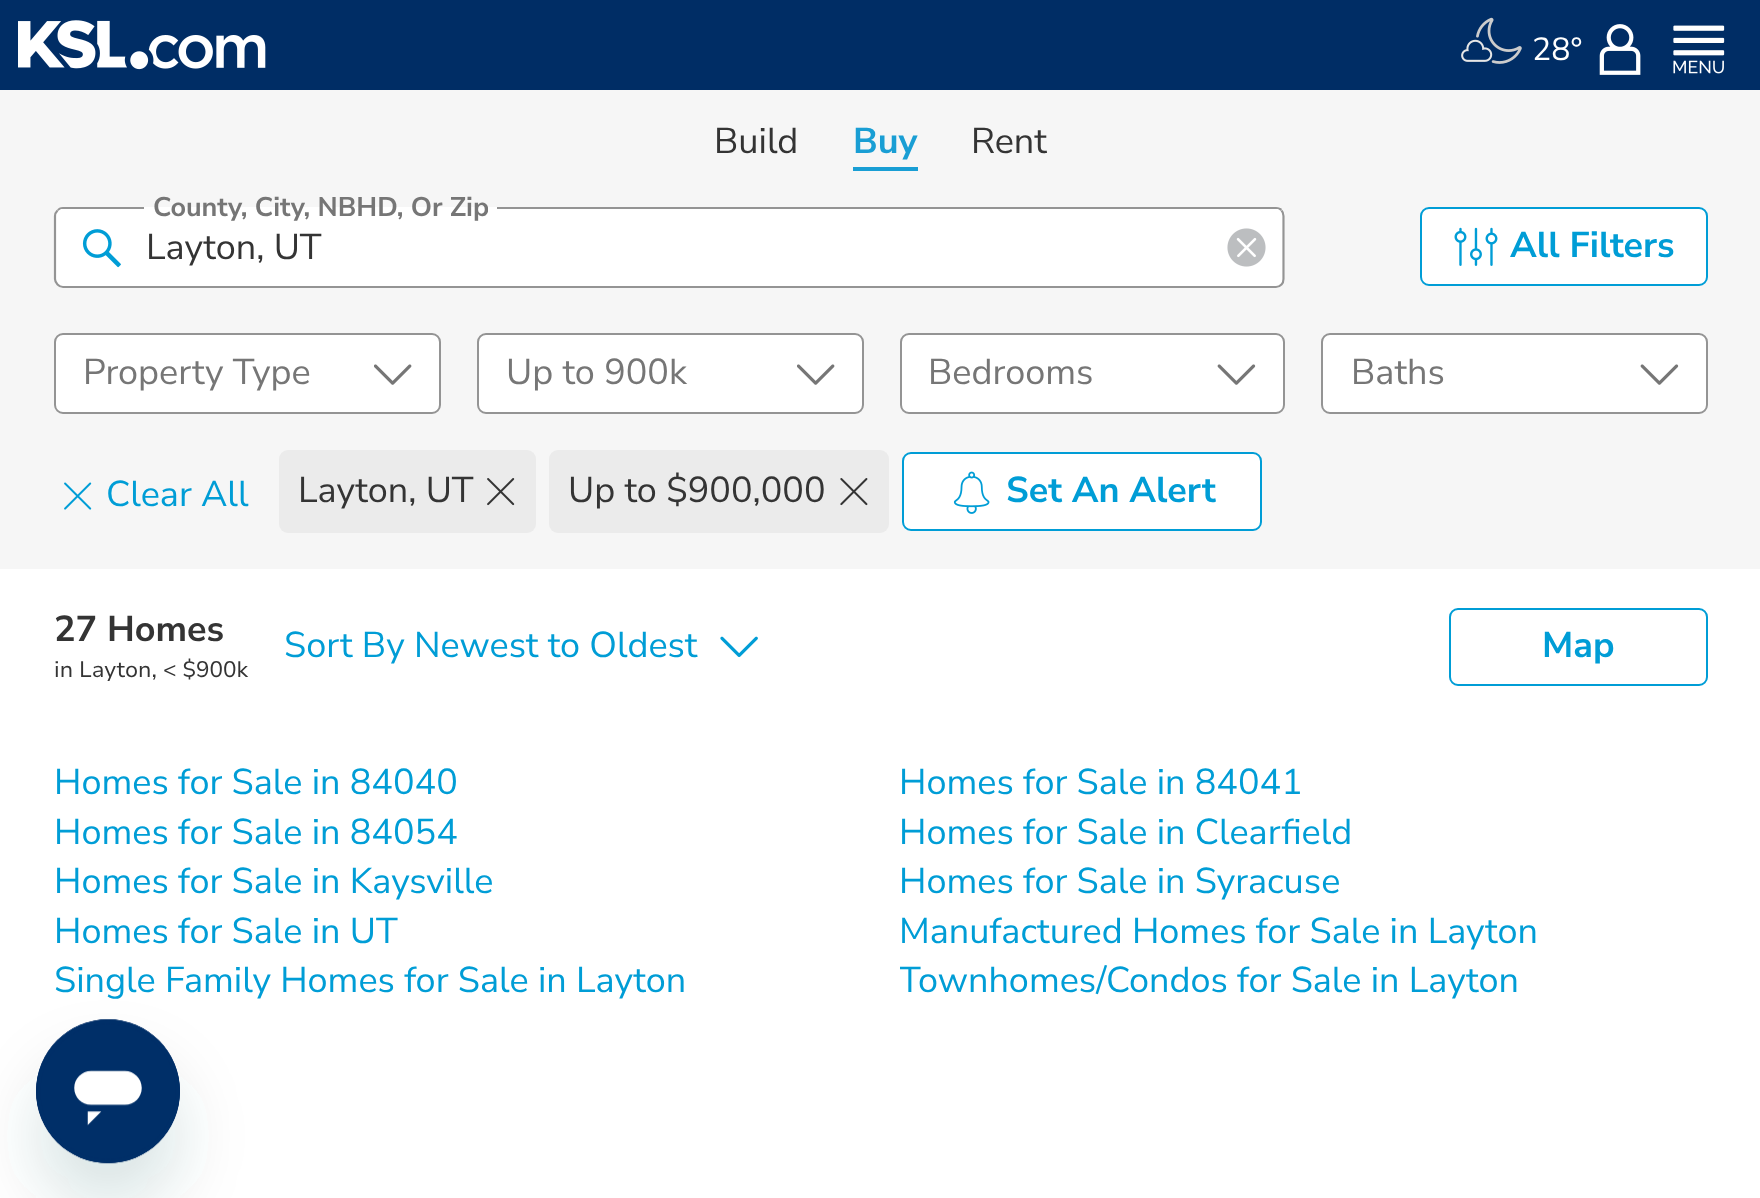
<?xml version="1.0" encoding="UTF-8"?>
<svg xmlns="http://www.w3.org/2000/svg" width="1760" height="1198">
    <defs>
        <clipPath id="clip1"><rect x="153" y="189" width="335" height="38"/></clipPath>
        <clipPath id="clip2"><rect x="900" y="956" width="808" height="50"/></clipPath>
        <filter id="blur1" x="-50%" y="-200%" width="200%" height="500%"><feGaussianBlur stdDeviation="34"/></filter>
    </defs>
    <rect width="100%" height="100%" fill="#FFFFFF"/>
    <rect x="0" y="0" width="1760" height="90" fill="#002D65"/>
    <image x="18" y="20" width="248" height="50" href="img_01.png"/>
    <image x="1461" y="17" width="61" height="47" href="img_02.png"/>
    <text x="1532" y="60" font-family="Nunito Sans" font-size="32" fill="#FFFFFF">28°</text>
    <image x="1599" y="24" width="42" height="51" href="img_03.png"/>
    <image x="1673" y="25" width="52" height="49" href="img_04.png"/>
    <rect x="0" y="90" width="1760" height="479" fill="#F6F6F6"/>
    <text x="714" y="153" font-family="Nunito Sans" font-size="36" fill="#343434">Build</text>
    <text x="853" y="153" font-family="Nunito Sans" font-size="36" font-weight="700" fill="#199ED4">Buy</text>
    <rect x="853" y="167" width="65" height="4" fill="#199ED4"/>
    <text x="971" y="153" font-family="Nunito Sans" font-size="36" fill="#343434">Rent</text>
    <rect x="54" y="207" width="1231" height="81" rx="9" fill="#FFFFFF"/>
    <path d="M 1281.5 210.5 C 1283 212 1283.5 214 1283.5 216 V 279 C 1283.5 281 1283 283 1281.5 284.5 C 1280 286 1278 287 1276 287 H 63 C 61 287 59 286 57.5 284.5 C 56 283 55 281 55 279 V 216 C 55 214 56 212 57.5 210.5" fill="none" stroke="#949494" stroke-width="2.2"/>
    <path d="M 63 207 C 60 207 58 208 57 210 L 58 211 L 61 209 H 144 V 207 Z" fill="#949494"/>
    <g clip-path="url(#clip1)">
        <text x="153" y="216" font-family="Nunito Sans" font-size="27" font-weight="700" fill="#767676">County, City, NBHD, Or Zip</text>
    </g>
    <path d="M 497 207 H 1276 C 1279 207 1281 208 1282 209 L 1281 211 L 1278 209 H 497 Z" fill="#949494"/>
    <image x="82" y="229" width="39" height="39" href="img_05.png"/>
    <text x="146" y="259" font-family="Nunito Sans" font-size="36" fill="#343434">Layton, UT</text>
    <image x="1227" y="228" width="39" height="39" href="img_06.png"/>
    <rect x="1421" y="208" width="286" height="77" rx="8" fill="#FFFFFF" stroke="#009DD6" stroke-width="2"/>
    <image x="1454" y="227" width="44" height="39" href="img_07.png"/>
    <text x="1510" y="257" font-family="Nunito Sans" font-size="36" font-weight="700" fill="#009DD6">All Filters</text>
    <rect x="55" y="334" width="385" height="79" rx="8" fill="#FFFFFF" stroke="#949494" stroke-width="2"/>
    <text x="83" y="384" font-family="Nunito Sans" font-size="36" fill="#767676">Property Type</text>
    <image x="374" y="364" width="38" height="21" href="img_08.png"/>
    <rect x="478" y="334" width="385" height="79" rx="8" fill="#FFFFFF" stroke="#949494" stroke-width="2"/>
    <text x="506" y="384" font-family="Nunito Sans" font-size="36" fill="#767676">Up to 900k</text>
    <image x="797" y="364" width="38" height="21" href="img_08.png"/>
    <rect x="901" y="334" width="383" height="79" rx="8" fill="#FFFFFF" stroke="#949494" stroke-width="2"/>
    <text x="928" y="384" font-family="Nunito Sans" font-size="36" fill="#767676">Bedrooms</text>
    <image x="1217" y="364" width="39" height="21" href="img_09.png"/>
    <rect x="1322" y="334" width="385" height="79" rx="8" fill="#FFFFFF" stroke="#949494" stroke-width="2"/>
    <text x="1351" y="384" font-family="Nunito Sans" font-size="36" fill="#767676">Baths</text>
    <image x="1640" y="364" width="39" height="21" href="img_09.png"/>
    <image x="64" y="482" width="28" height="28" href="img_10.png"/>
    <text x="106" y="506" font-family="Nunito Sans" font-size="36" fill="#009DD6">Clear All</text>
    <rect x="279" y="450" width="257" height="83" rx="9" fill="#EBEBEB"/>
    <text x="298" y="502" font-family="Nunito Sans" font-size="36" fill="#343434">Layton, UT</text>
    <image x="487" y="478" width="28" height="28" href="img_11.png"/>
    <rect x="549" y="450" width="340" height="83" rx="9" fill="#EBEBEB"/>
    <text x="568" y="502" font-family="Nunito Sans" font-size="36" fill="#343434">Up to $900,000</text>
    <image x="840" y="478" width="28" height="28" href="img_12.png"/>
    <rect x="903" y="453" width="358" height="77" rx="8" fill="#FFFFFF" stroke="#009DD6" stroke-width="2"/>
    <image x="953" y="471" width="37" height="43" href="img_13.png"/>
    <text x="1006" y="502" font-family="Nunito Sans" font-size="36" font-weight="700" fill="#009DD6">Set An Alert</text>
    <text x="54" y="641" font-family="Nunito Sans" font-size="36" font-weight="700" fill="#343434">27 Homes</text>
    <text x="54" y="677" font-family="'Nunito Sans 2'" font-size="22.5" fill="#343434">in Layton, &lt; $900k</text>
    <text x="284" y="657" font-family="Nunito Sans" font-size="36" fill="#009DD6">Sort By Newest to Oldest</text>
    <image x="720" y="636" width="38" height="22" href="img_14.png"/>
    <rect x="1450" y="609" width="257" height="76" rx="8" fill="none" stroke="#009DD6" stroke-width="2"/>
    <text x="1542" y="657" font-family="Nunito Sans" font-size="36" font-weight="700" fill="#009DD6">Map</text>
    <text x="54" y="794" font-family="Nunito Sans" font-size="36" fill="#009DD6">Homes for Sale in 84040</text>
    <text x="899" y="794" font-family="Nunito Sans" font-size="36" fill="#009DD6">Homes for Sale in 84041</text>
    <text x="54" y="844" font-family="Nunito Sans" font-size="36" fill="#009DD6">Homes for Sale in 84054</text>
    <text x="899" y="844" font-family="Nunito Sans" font-size="36" fill="#009DD6">Homes for Sale in Clearfield</text>
    <text x="54" y="893" font-family="Nunito Sans" font-size="36" fill="#009DD6">Homes for Sale in Kaysville</text>
    <text x="899" y="893" font-family="Nunito Sans" font-size="36" fill="#009DD6">Homes for Sale in Syracuse</text>
    <text x="54" y="943" font-family="Nunito Sans" font-size="36" fill="#009DD6">Homes for Sale in UT</text>
    <text x="899" y="943" font-family="Nunito Sans" font-size="36" fill="#009DD6">Manufactured Homes for Sale in Layton</text>
    <text x="54" y="992" font-family="Nunito Sans" font-size="36" fill="#009DD6">Single Family Homes for Sale in Layton</text>
    <g clip-path="url(#clip2)">
        <text x="899" y="992" font-family="Nunito Sans" font-size="36" fill="#009DD6">Townhomes/Condos for Sale in Layton</text>
    </g>
    <rect x="36" y="1064" width="144" height="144" rx="72" fill="#17494D" fill-opacity="0.15" filter="url(#blur1)"/>
    <image x="36" y="1019" width="144" height="145" href="img_15.png"/>
</svg>
